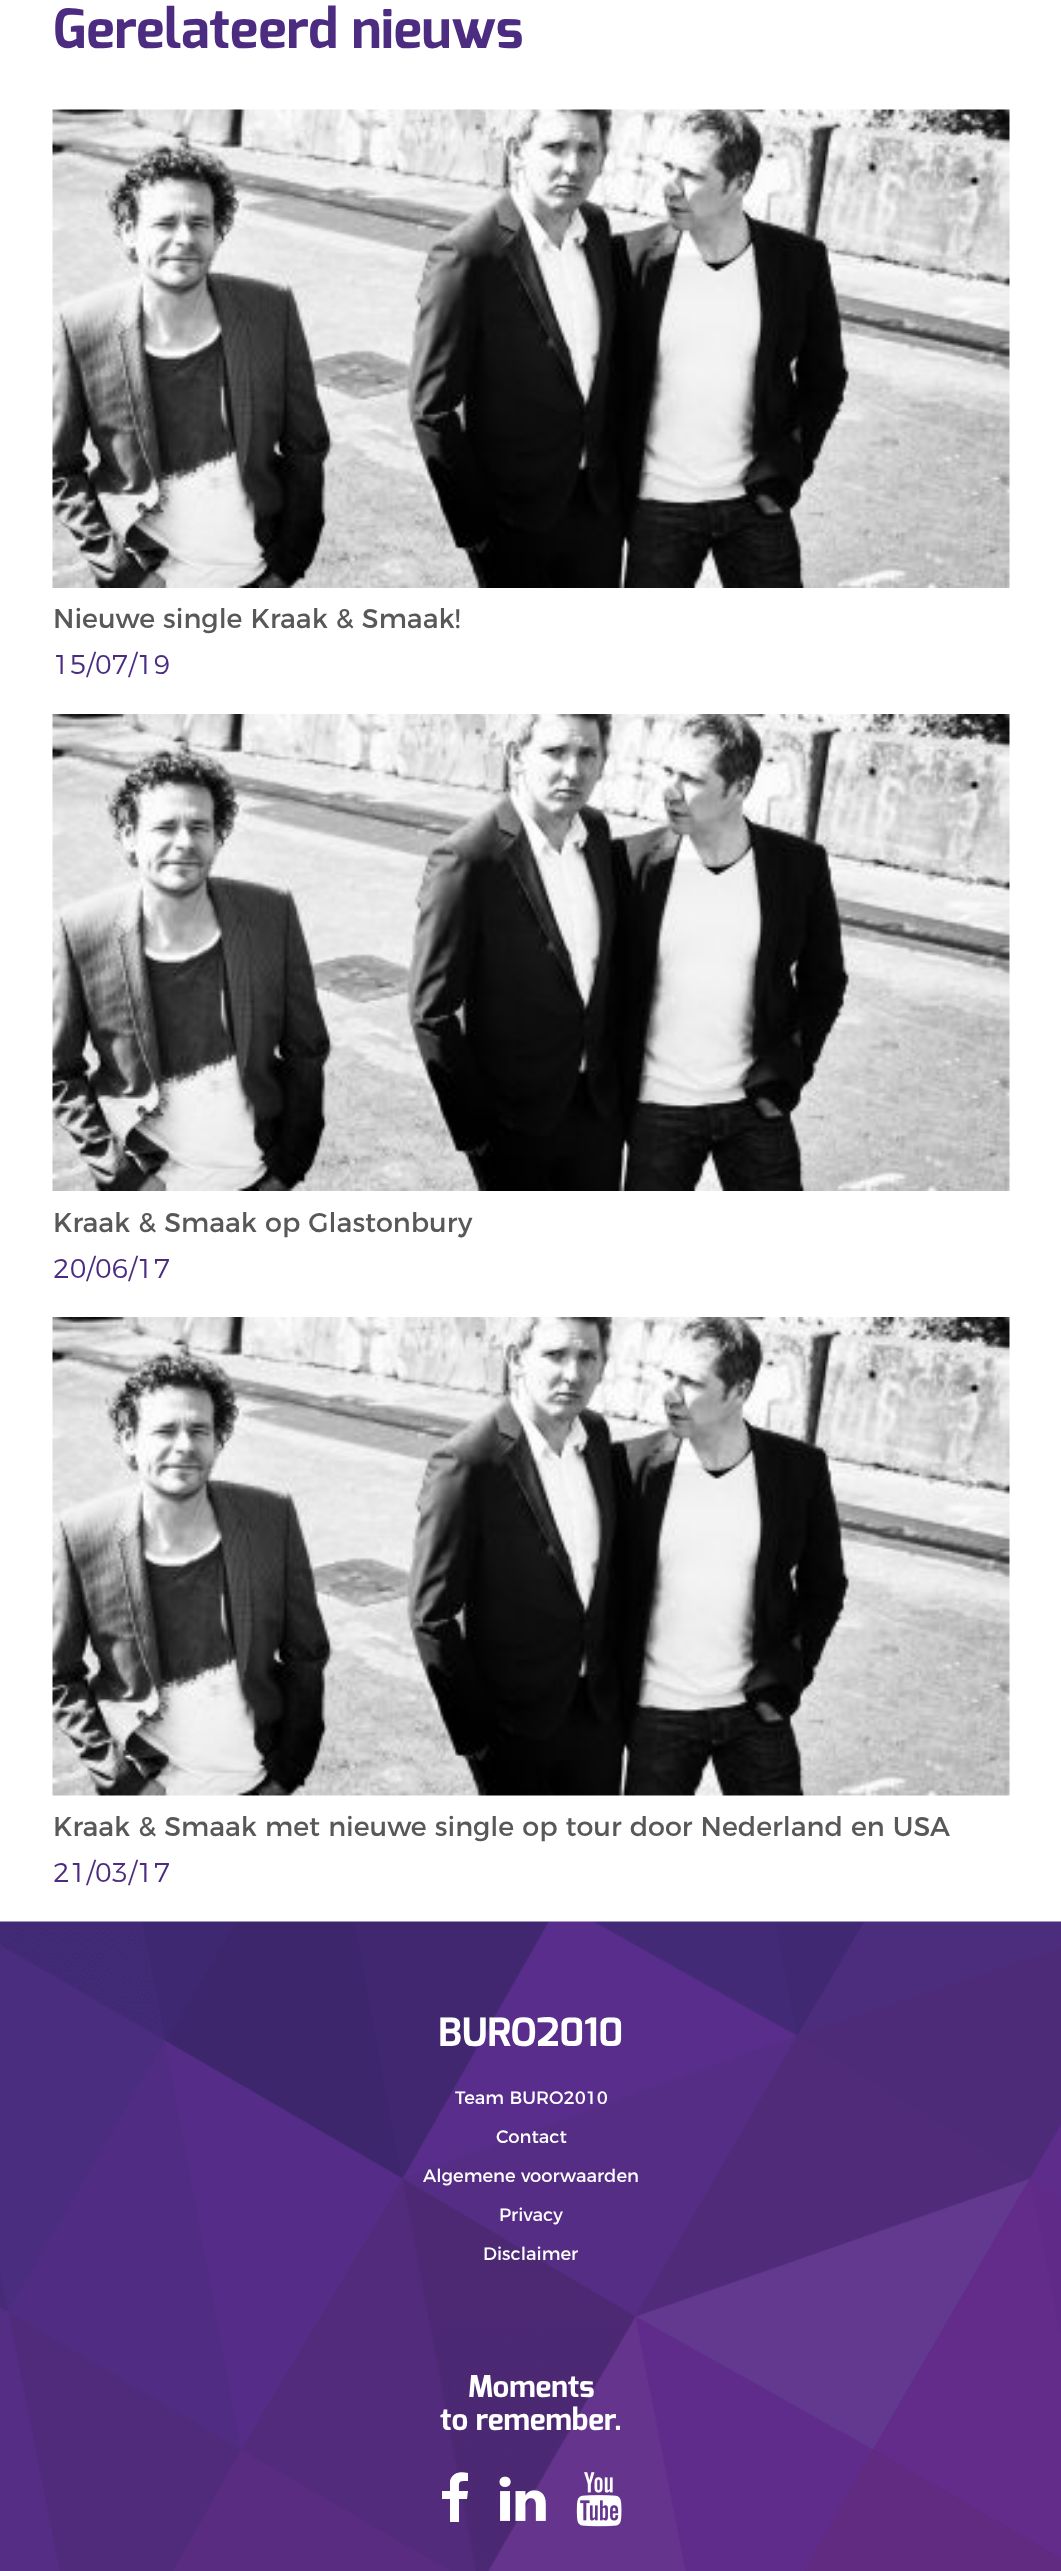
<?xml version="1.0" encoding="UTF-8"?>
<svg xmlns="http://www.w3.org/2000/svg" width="1061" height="2571">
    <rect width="100%" height="100%" fill="#FFFFFF"/>
    <text x="53" y="48" font-family="Exo" font-size="54" font-weight="700" fill="#4C2C81">Gerelateerd nieuws</text>
    <image x="52" y="109" width="958" height="479" href="img_01.png"/>
    <text x="53" y="628" font-family="Montserrat" font-size="27" fill="#585858">Nieuwe single Kraak &amp; Smaak!</text>
    <text x="53" y="674" font-family="Montserrat" font-size="27" font-weight="300" fill="#4C2C81">15/07/19</text>
    <image x="52" y="714" width="958" height="477" href="img_02.png"/>
    <text x="53" y="1232" font-family="Montserrat" font-size="27" fill="#585858">Kraak &amp; Smaak op Glastonbury</text>
    <text x="53" y="1278" font-family="Montserrat" font-size="27" font-weight="300" fill="#4C2C81">20/06/17</text>
    <image x="52" y="1317" width="958" height="479" href="img_03.png"/>
    <text x="53" y="1836" font-family="Montserrat" font-size="27" fill="#585858">Kraak &amp; Smaak met nieuwe single op tour door Nederland en USA</text>
    <text x="53" y="1882" font-family="Montserrat" font-size="27" font-weight="300" fill="#4C2C81">21/03/17</text>
    <image x="0" y="1921" width="1061" height="650" href="img_04.png"/>
    <text x="438" y="2046" font-family="Exo" font-size="39" font-weight="700" fill="#FFFFFF">BURO2010</text>
    <text x="455" y="2104" font-family="Montserrat" font-size="18" fill="#FFFFFF">Team BURO2010</text>
    <text x="496" y="2143" font-family="Montserrat" font-size="18" fill="#FFFFFF">Contact</text>
    <text x="423" y="2182" font-family="Montserrat" font-size="18" fill="#FFFFFF">Algemene voorwaarden</text>
    <text x="499" y="2221" font-family="Montserrat" font-size="18" fill="#FFFFFF">Privacy</text>
    <text x="483" y="2260" font-family="Montserrat" font-size="18" fill="#FFFFFF">Disclaimer</text>
    <text x="468" y="2397" font-family="Exo" font-size="30" font-weight="700" fill="#FFFFFF">Moments</text>
    <text x="440" y="2430" font-family="Exo" font-size="30" font-weight="700" fill="#FFFFFF">to remember.</text>
    <path d="M 468 2473 V 2481 C 458 2481 459 2481 459 2491 H 468 L 467 2499 H 459 V 2522 H 450 V 2499 H 442 V 2491 H 450 V 2481 C 452 2472 461 2471 468 2473 Z" fill="#FFFFFF"/>
    <image x="499" y="2476" width="47" height="45" href="img_05.png"/>
    <image x="576" y="2472" width="46" height="55" href="img_06.png"/>
</svg>
